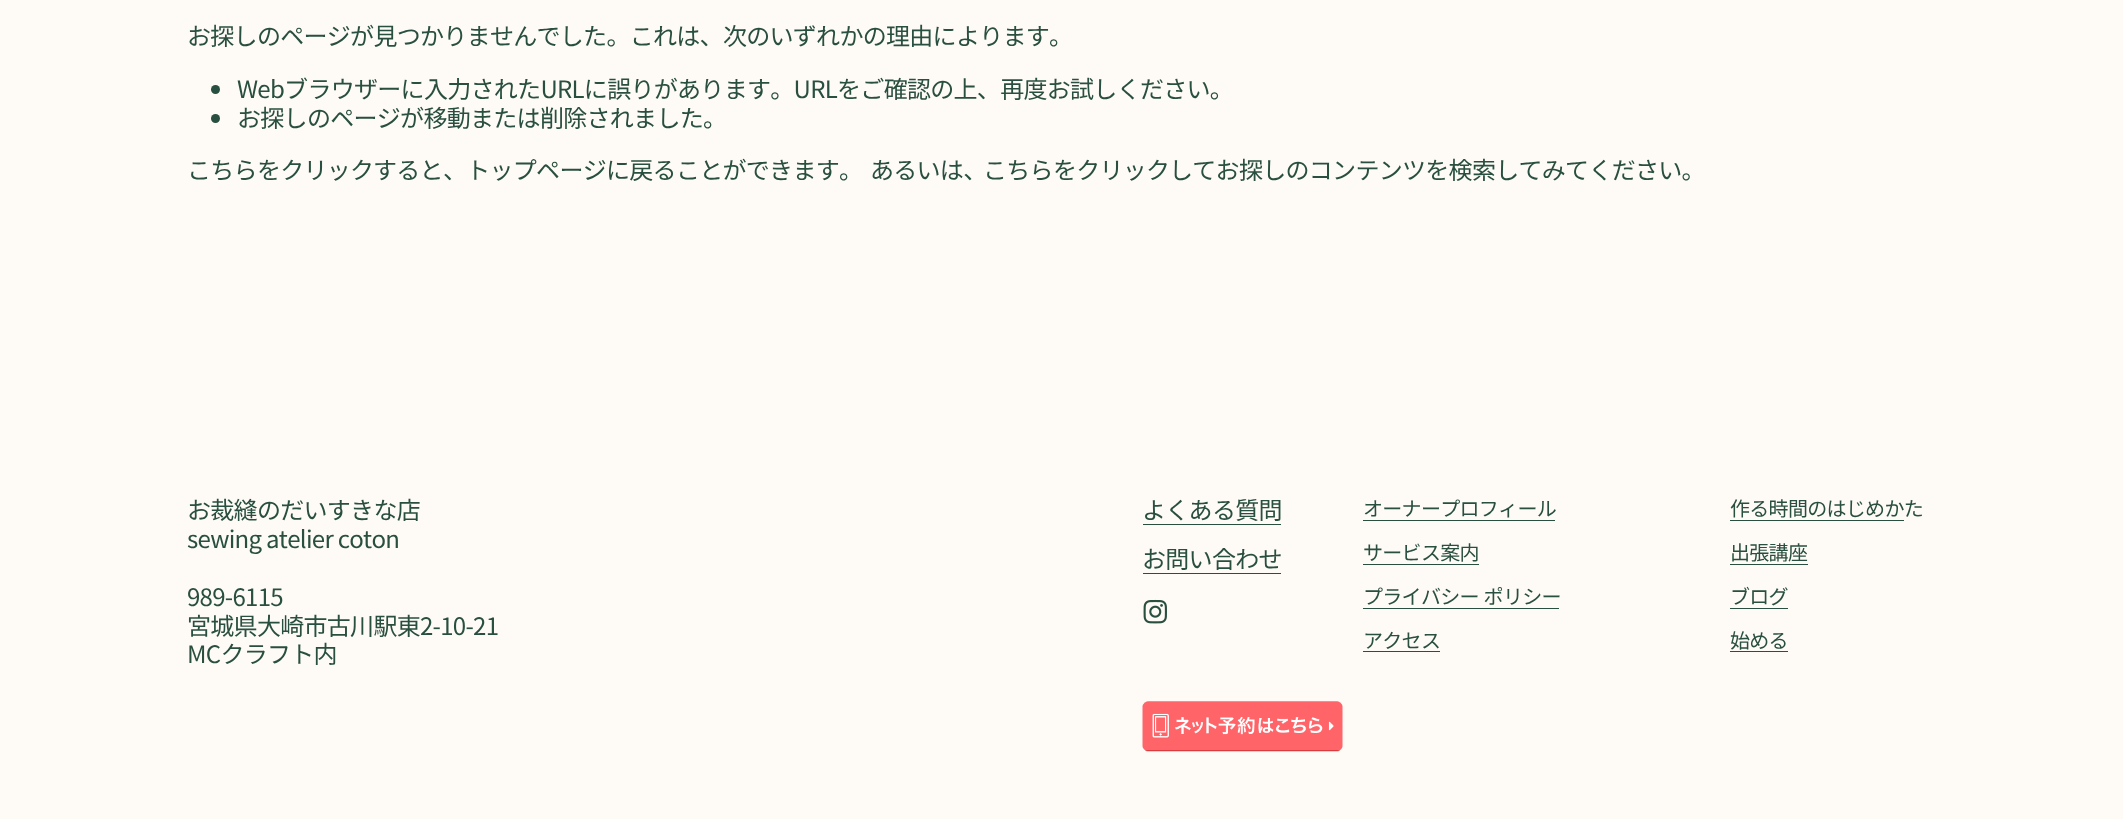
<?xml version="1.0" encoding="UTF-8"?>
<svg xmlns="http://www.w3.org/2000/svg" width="2123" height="819">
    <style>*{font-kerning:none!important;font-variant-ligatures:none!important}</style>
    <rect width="100%" height="100%" fill="#FEFAF6"/>
    <text x="187" y="45" font-family="Noto Sans JP" font-size="24" letter-spacing="-0.7" fill="#284F3F">お探しのページが見つかりませんでした。これは、次のいずれかの理由によります。</text>
    <circle cx="215.5" cy="89.5" r="4.5" fill="#284F3F"/>
    <text x="237" y="98" font-family="Noto Sans JP" font-size="24" letter-spacing="-0.7" fill="#284F3F">Webブラウザーに入力されたURLに誤りがあります。URLをご確認の上、再度お試しください。</text>
    <circle cx="215.5" cy="118.5" r="4.5" fill="#284F3F"/>
    <text x="237" y="127" font-family="Noto Sans JP" font-size="24" letter-spacing="-0.7" fill="#284F3F">お探しのページが移動または削除されました。</text>
    <text x="187" y="179" font-family="Noto Sans JP" font-size="24" letter-spacing="-0.7" fill="#284F3F">こちらをクリック</text>
    <text x="373" y="179" word-spacing="3" font-family="Noto Sans JP" font-size="24" letter-spacing="-0.7" fill="#284F3F">すると、トップページに戻ることができます。 あるいは、</text>
    <text x="983" y="179" font-family="Noto Sans JP" font-size="24" letter-spacing="-0.7" fill="#284F3F">こちらをクリック</text>
    <text x="1169" y="179" font-family="Noto Sans JP" font-size="24" letter-spacing="-0.7" fill="#284F3F">してお探しのコンテンツを検索してみてください。</text>
    <text font-family="Noto Sans JP" font-size="24" letter-spacing="-0.7" fill="#284F3F">
        <tspan x="187" y="519">お裁縫のだいすきな店</tspan>
        <tspan x="187" y="548">sewing atelier coton</tspan>
    </text>
    <text font-family="Noto Sans JP" font-size="24" letter-spacing="-0.7" fill="#284F3F">
        <tspan x="187" y="606">989-6115</tspan>
        <tspan x="187" y="635">宮城県大崎市古川駅東2-10-21</tspan>
        <tspan x="187" y="663">MCクラフト内</tspan>
    </text>
    <text x="1142" y="519" font-family="Noto Sans JP" font-size="24" letter-spacing="-0.7" fill="#284F3F">よくある質問</text>
    <rect x="1143" y="524" width="138" height="1" fill="#284F3F"/>
    <text x="1142" y="568" font-family="Noto Sans JP" font-size="24" letter-spacing="-0.7" fill="#284F3F">お問い合わせ</text>
    <rect x="1143" y="573" width="138" height="1" fill="#284F3F"/>
    <text x="1363" y="516" font-family="Noto Sans JP" font-size="20" letter-spacing="-0.7" fill="#284F3F">オーナープロフィール</text>
    <rect x="1363" y="520" width="192" height="1" fill="#284F3F"/>
    <text x="1363" y="560" font-family="Noto Sans JP" font-size="20" letter-spacing="-0.7" fill="#284F3F">サービス案内</text>
    <rect x="1363" y="564" width="116" height="1" fill="#284F3F"/>
    <text x="1363" y="604" word-spacing="1" font-family="Noto Sans JP" font-size="20" letter-spacing="-0.7" fill="#284F3F">プライバシー ポリシー</text>
    <rect x="1363" y="608" width="196" height="1" fill="#284F3F"/>
    <text x="1363" y="648" font-family="Noto Sans JP" font-size="20" letter-spacing="-0.7" fill="#284F3F">アクセス</text>
    <rect x="1363" y="651" width="77" height="1" fill="#284F3F"/>
    <text x="1730" y="516" font-family="Noto Sans JP" font-size="20" letter-spacing="-0.7" fill="#284F3F">作る時間のはじめかた</text>
    <rect x="1730" y="520" width="174" height="1" fill="#284F3F"/>
    <text x="1730" y="560" font-family="Noto Sans JP" font-size="20" letter-spacing="-0.7" fill="#284F3F">出張講座</text>
    <rect x="1730" y="564" width="78" height="1" fill="#284F3F"/>
    <text x="1730" y="604" font-family="Noto Sans JP" font-size="20" letter-spacing="-0.7" fill="#284F3F">ブログ</text>
    <rect x="1730" y="608" width="58" height="1" fill="#284F3F"/>
    <text x="1730" y="648" font-family="Noto Sans JP" font-size="20" letter-spacing="-0.7" fill="#284F3F">始める</text>
    <rect x="1730" y="651" width="58" height="1" fill="#284F3F"/>
    <image x="1143" y="599" width="24" height="25" href="img_01.png"/>
    <image x="1142" y="701" width="201" height="51" href="img_02.png"/>
</svg>
